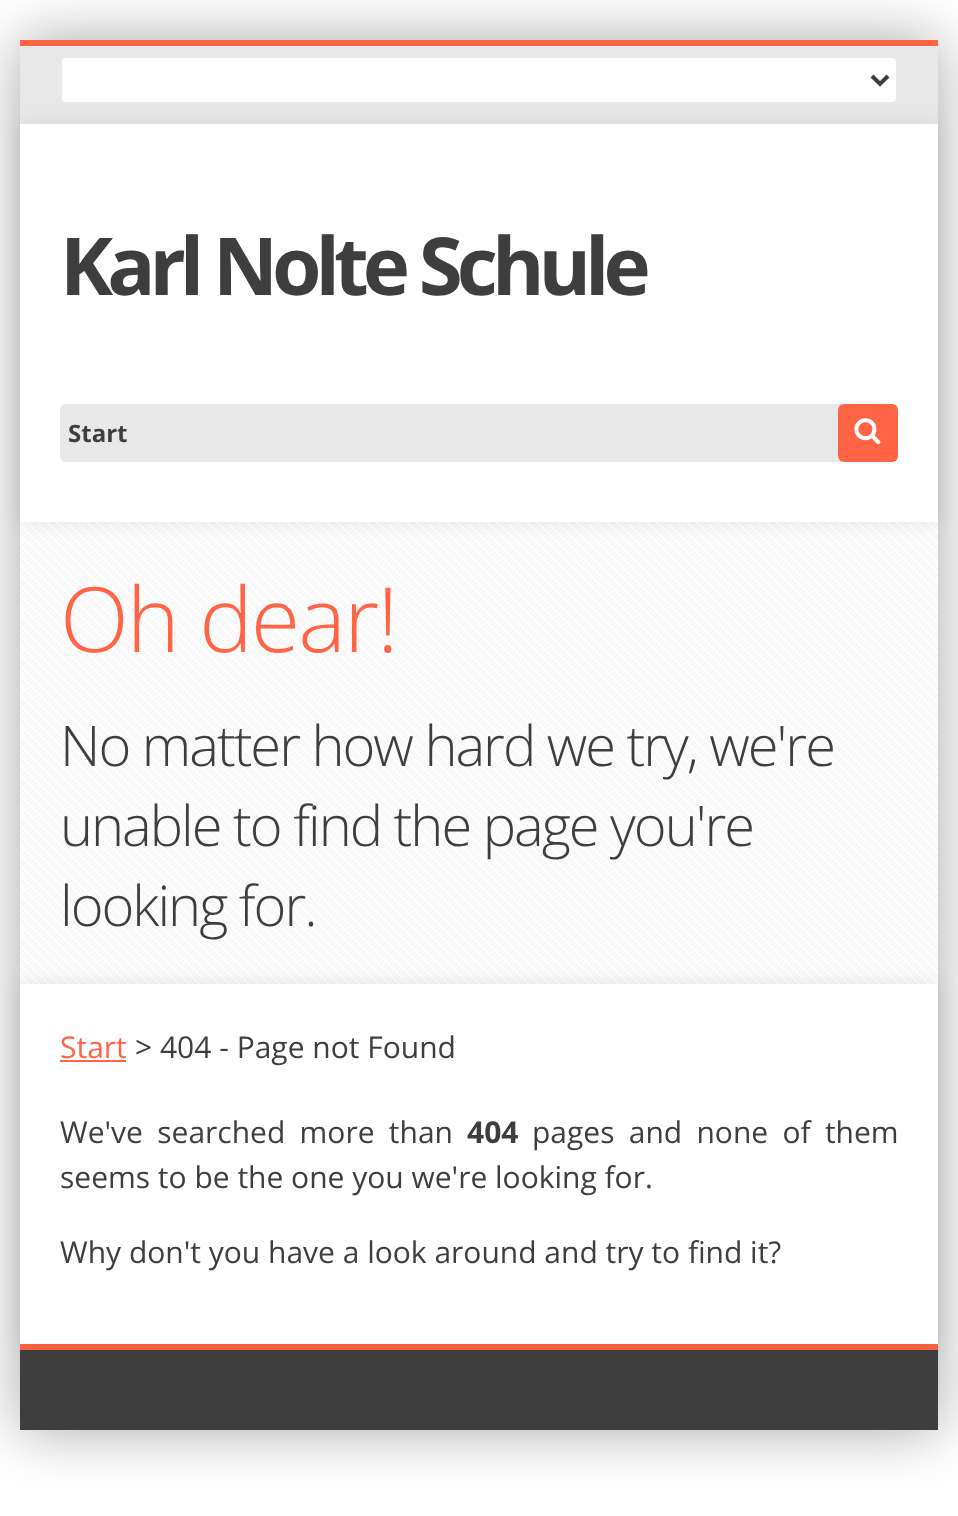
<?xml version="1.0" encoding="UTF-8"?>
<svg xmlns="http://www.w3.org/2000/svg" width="958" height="1516">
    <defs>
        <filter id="blur1" x="-50%" y="-200%" width="200%" height="500%"><feGaussianBlur stdDeviation="30"/></filter>
        <clipPath id="clip1"><path d="M 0 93 H 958 V 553 H 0 Z M 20 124 H 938 V 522 H 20 Z" clip-rule="evenodd"/></clipPath>
        <filter id="blur2" x="-50%" y="-200%" width="200%" height="500%"><feGaussianBlur stdDeviation="10"/></filter>
        <clipPath id="clip2"><path d="M 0 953 H 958 V 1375 H 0 Z M 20 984 H 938 V 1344 H 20 Z" clip-rule="evenodd"/></clipPath>
    </defs>
    <rect width="100%" height="100%" fill="#FFFFFF"/>
    <rect x="20" y="40" width="918" height="1390" fill="#000000" fill-opacity="0.35" filter="url(#blur1)"/>
    <rect x="20" y="124" width="918" height="1220" fill="#FFFFFF"/>
    <rect x="20" y="46" width="918" height="78" fill="#E8E8E8"/>
    <rect x="20" y="40" width="918" height="6" fill="#FF6445"/>
    <rect x="61" y="57" width="836" height="46" rx="5" fill="#FFFFFF" stroke="#E8E8E8" stroke-width="2"/>
    <path d="M 872 76 L 880 84 L 888 76" fill="none" stroke="#3E3E3E" stroke-width="4"/>
    <image x="20" y="522" width="918" height="462" href="img_02.png"/>
    <g clip-path="url(#clip1)">
        <rect x="20" y="124" width="918" height="398" fill="#000000" fill-opacity="0.09" filter="url(#blur2)"/>
    </g>
    <text x="60" y="295" font-family="Open Sans" font-size="80" font-weight="700" letter-spacing="-6" fill="#3E3E3E">Karl Nolte Schule</text>
    <rect x="60" y="404" width="838" height="58" rx="6" fill="#E8E8E8"/>
    <text x="68" y="442" font-family="Open Sans" font-size="24" font-weight="700" fill="#3E3E3E">Start</text>
    <rect x="838" y="404" width="60" height="58" rx="6" fill="#FF6445"/>
    <image x="854" y="418" width="27" height="27" href="img_01.png"/>
    <text x="60" y="652" font-family="Open Sans" font-size="90" font-weight="300" letter-spacing="-2" fill="#FF6445">Oh dear!</text>
    <text font-family="Open Sans" font-size="56" font-weight="300" letter-spacing="-2" fill="#3E3E3E">
        <tspan x="60" y="766">No matter how hard we try, we're</tspan>
        <tspan x="60" y="846">unable to find the page you're</tspan>
        <tspan x="60" y="926">looking for.</tspan>
    </text>
    <rect x="20" y="1350" width="918" height="80" fill="#3E3E3E"/>
    <rect x="20" y="1344" width="918" height="6" fill="#FF6445"/>
    <g clip-path="url(#clip2)">
        <rect x="20" y="984" width="918" height="360" fill="#000000" fill-opacity="0.09" filter="url(#blur2)"/>
    </g>
    <text x="60" y="1058" font-family="Open Sans" font-size="30" fill="#FF6445">Start</text>
    <rect x="60" y="1060" width="66" height="2" fill="#FF6445"/>
    <text x="135" y="1058" font-family="Open Sans" font-size="30" fill="#3E3E3E">&gt; 404 - Page not Found</text>
    <text x="60" y="1143" word-spacing="6.5" font-family="Open Sans" font-size="30" fill="#3E3E3E">We've searched more than</text>
    <text x="467" y="1143" font-family="Open Sans" font-size="30" font-weight="700" fill="#3E3E3E">404</text>
    <text x="532" y="1143" word-spacing="6.5" font-family="Open Sans" font-size="30" fill="#3E3E3E">pages and none of them</text>
    <text x="60" y="1188" font-family="Open Sans" font-size="30" fill="#3E3E3E">seems to be the one you we're looking for.</text>
    <text x="60" y="1263" font-family="Open Sans" font-size="30" fill="#3E3E3E">Why don't you have a look around and try to find it?</text>
</svg>
